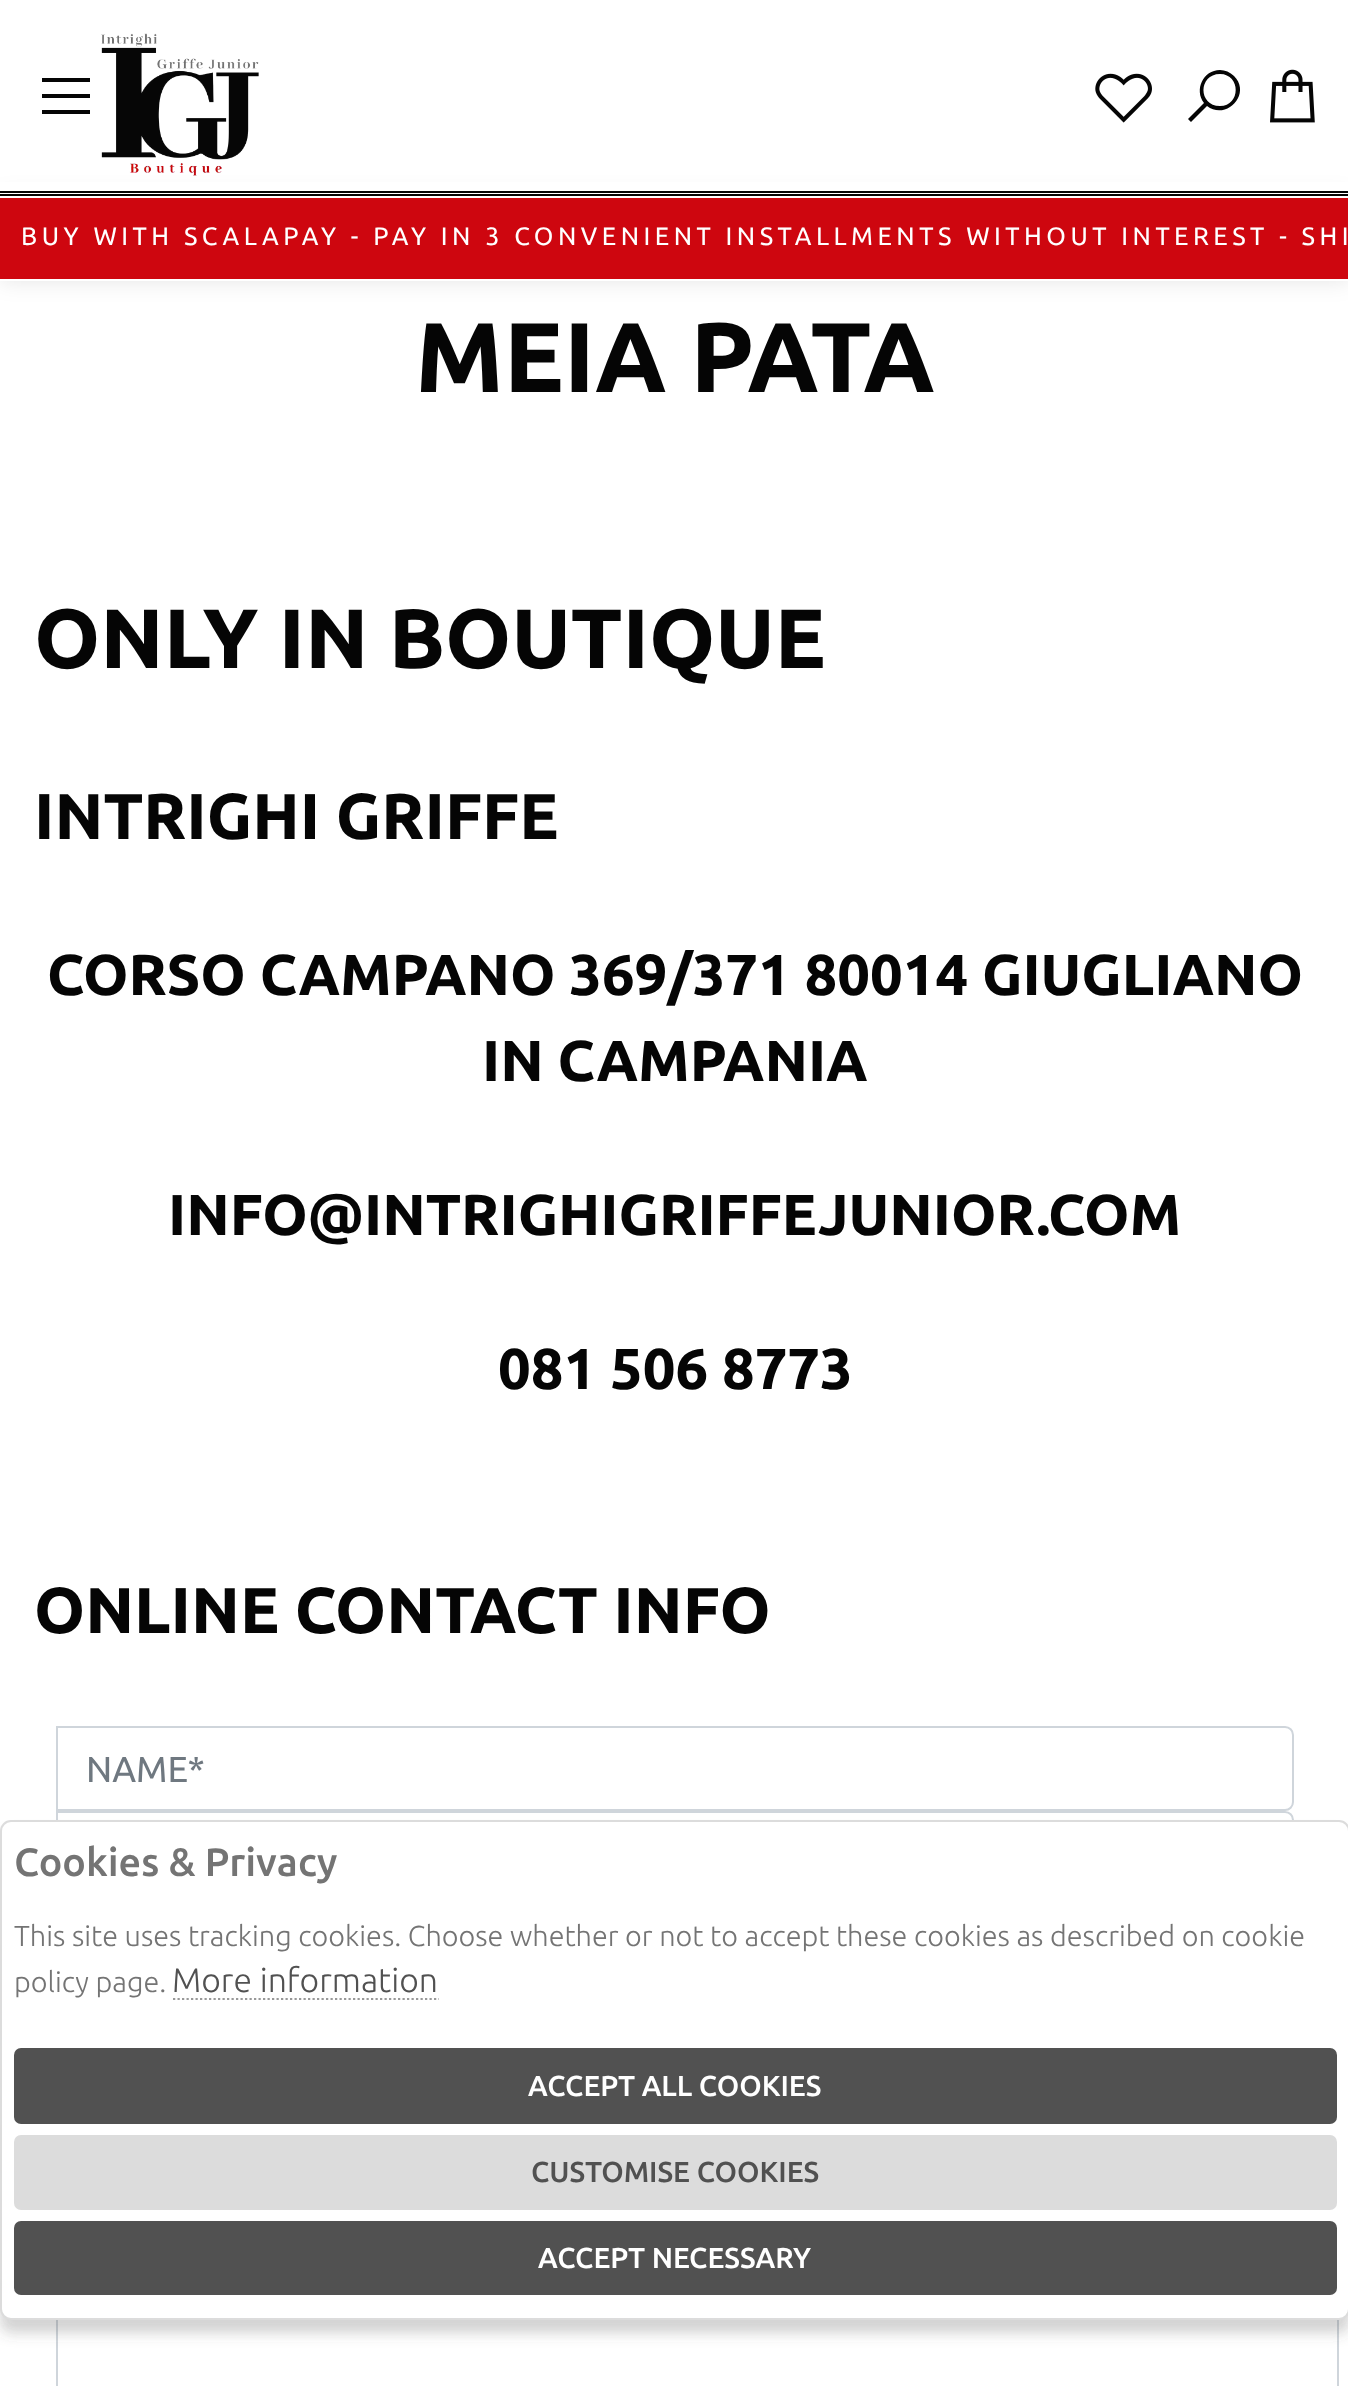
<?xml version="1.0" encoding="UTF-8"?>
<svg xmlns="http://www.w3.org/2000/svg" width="1348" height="2386">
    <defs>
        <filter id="blur1" x="-50%" y="-200%" width="200%" height="500%"><feGaussianBlur stdDeviation="11"/></filter>
        <filter id="blur2" x="-50%" y="-200%" width="200%" height="500%"><feGaussianBlur stdDeviation="7"/></filter>
    </defs>
    <rect width="100%" height="100%" fill="#FFFFFF"/>
    <rect x="0" y="196" width="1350" height="85" fill="#050505" fill-opacity="0.1" filter="url(#blur1)"/>
    <rect x="0" y="182" width="1348" height="12" fill="#FFFFFF"/>
    <rect x="0" y="191" width="1348" height="2" fill="#050505"/>
    <path d="M 42 78 V 82 H 90 V 78 Z M 42 94 V 98 H 90 V 94 Z M 42 110 V 114 H 90 V 110 Z" fill="#050505"/>
    <image x="101" y="33" width="158" height="143" href="img_01.png"/>
    <image x="1095" y="73" width="57" height="50" href="img_02.png"/>
    <path d="M 1220 70 C 1203 70 1194 90 1204 103 L 1188 119 L 1191 122 L 1207 106 C 1226 121 1252 94 1234 76 C 1230 72 1225 70 1220 70 Z M 1220 74 C 1241 74 1241 106 1220 106 C 1198 106 1198 74 1220 74 Z" fill="#050505"/>
    <image x="1270" y="69" width="45" height="54" href="img_03.png"/>
    <rect x="0" y="194" width="1348" height="2" fill="#050505"/>
    <rect x="0" y="198" width="1348" height="81" fill="#CE060F"/>
    <rect x="0" y="196" width="1348" height="2" fill="#FFFFFF"/>
    <rect x="0" y="279" width="1348" height="2" fill="#FFFFFF"/>
    <text x="21" y="245" font-family="Ubuntu" font-size="25.2" letter-spacing="4.5" fill="#FFFFFF">BUY WITH SCALAPAY - PAY IN 3 CONVENIENT INSTALLMENTS WITHOUT INTEREST - SHI</text>
    <text x="415" y="392" font-family="Ubuntu" font-size="99" font-weight="700" fill="#050505">MEIA PATA</text>
    <text x="34" y="668" font-family="Ubuntu" font-size="84" font-weight="700" fill="#050505">ONLY IN BOUTIQUE</text>
    <text x="34" y="839" font-family="Ubuntu" font-size="64.75" font-weight="700" fill="#050505">INTRIGHI GRIFFE</text>
    <text x="47" y="995" font-family="Ubuntu" font-size="57.6" font-weight="700" fill="#050505">CORSO CAMPANO 369/371 80014 GIUGLIANO</text>
    <text x="482" y="1081" font-family="Ubuntu" font-size="57.6" font-weight="700" fill="#050505">IN CAMPANIA</text>
    <text x="168" y="1235" font-family="Ubuntu" font-size="57.6" font-weight="700" fill="#050505">INFO@INTRIGHIGRIFFEJUNIOR.COM</text>
    <text x="498" y="1389" font-family="Ubuntu" font-size="57.6" font-weight="700" fill="#050505">081 506 8773</text>
    <text x="34" y="1633" font-family="Ubuntu" font-size="64.75" font-weight="700" fill="#050505">ONLINE CONTACT INFO</text>
    <path d="M 57 1727 H 1285 C 1289.5 1727 1293 1730.5 1293 1735 V 1802 C 1293 1806.5 1289.5 1810 1285 1810 H 57 Z" fill="none" stroke="#CFD5DB" stroke-width="2"/>
    <text x="86" y="1782" font-family="Ubuntu" font-size="36" fill="#6F7880">NAME*</text>
    <path d="M 57 1812 H 1285 C 1289.5 1812 1293 1815.5 1293 1820 V 1888 C 1293 1892.5 1289.5 1896 1285 1896 H 57 Z" fill="none" stroke="#CFD5DB" stroke-width="2"/>
    <rect x="57" y="2123" width="1281" height="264" fill="none" stroke="#CFD5DB" stroke-width="2"/>
    <rect x="0" y="1834" width="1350" height="499" rx="11" fill="#515151" fill-opacity="0.25" filter="url(#blur2)"/>
    <rect x="1" y="1821" width="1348" height="498" rx="10" fill="#FFFFFF" stroke="#DCDCDC" stroke-width="2"/>
    <text x="14" y="1876" font-family="Ubuntu" font-size="39.5" font-weight="500" fill="#747474">Cookies &amp; Privacy</text>
    <text font-family="Ubuntu" font-size="28.8" font-weight="300" fill="#747474">
        <tspan x="14" y="1946">This site uses tracking cookies. Choose whether or not to accept these cookies as described on cookie</tspan>
        <tspan x="14" y="1992">policy page.</tspan>
    </text>
    <text x="172" y="1992" font-family="Ubuntu" font-size="33.75" font-weight="300" fill="#515151">More information</text>
    <path d="M 173 1999 H 439" fill="none" stroke="#999999" stroke-width="2.2" stroke-dasharray="2.25 2.25"/>
    <rect x="14" y="2048" width="1323" height="76" rx="7" fill="#515151"/>
    <text x="528" y="2096" font-family="Ubuntu" font-size="28.8" font-weight="500" fill="#FFFFFF">ACCEPT ALL COOKIES</text>
    <rect x="14" y="2135" width="1323" height="75" rx="7" fill="#DCDCDC"/>
    <text x="531" y="2182" font-family="Ubuntu" font-size="28.8" font-weight="500" fill="#515151">CUSTOMISE COOKIES</text>
    <rect x="14" y="2221" width="1323" height="74" rx="7" fill="#515151"/>
    <text x="538" y="2268" font-family="Ubuntu" font-size="28.8" font-weight="500" fill="#FFFFFF">ACCEPT NECESSARY</text>
</svg>
